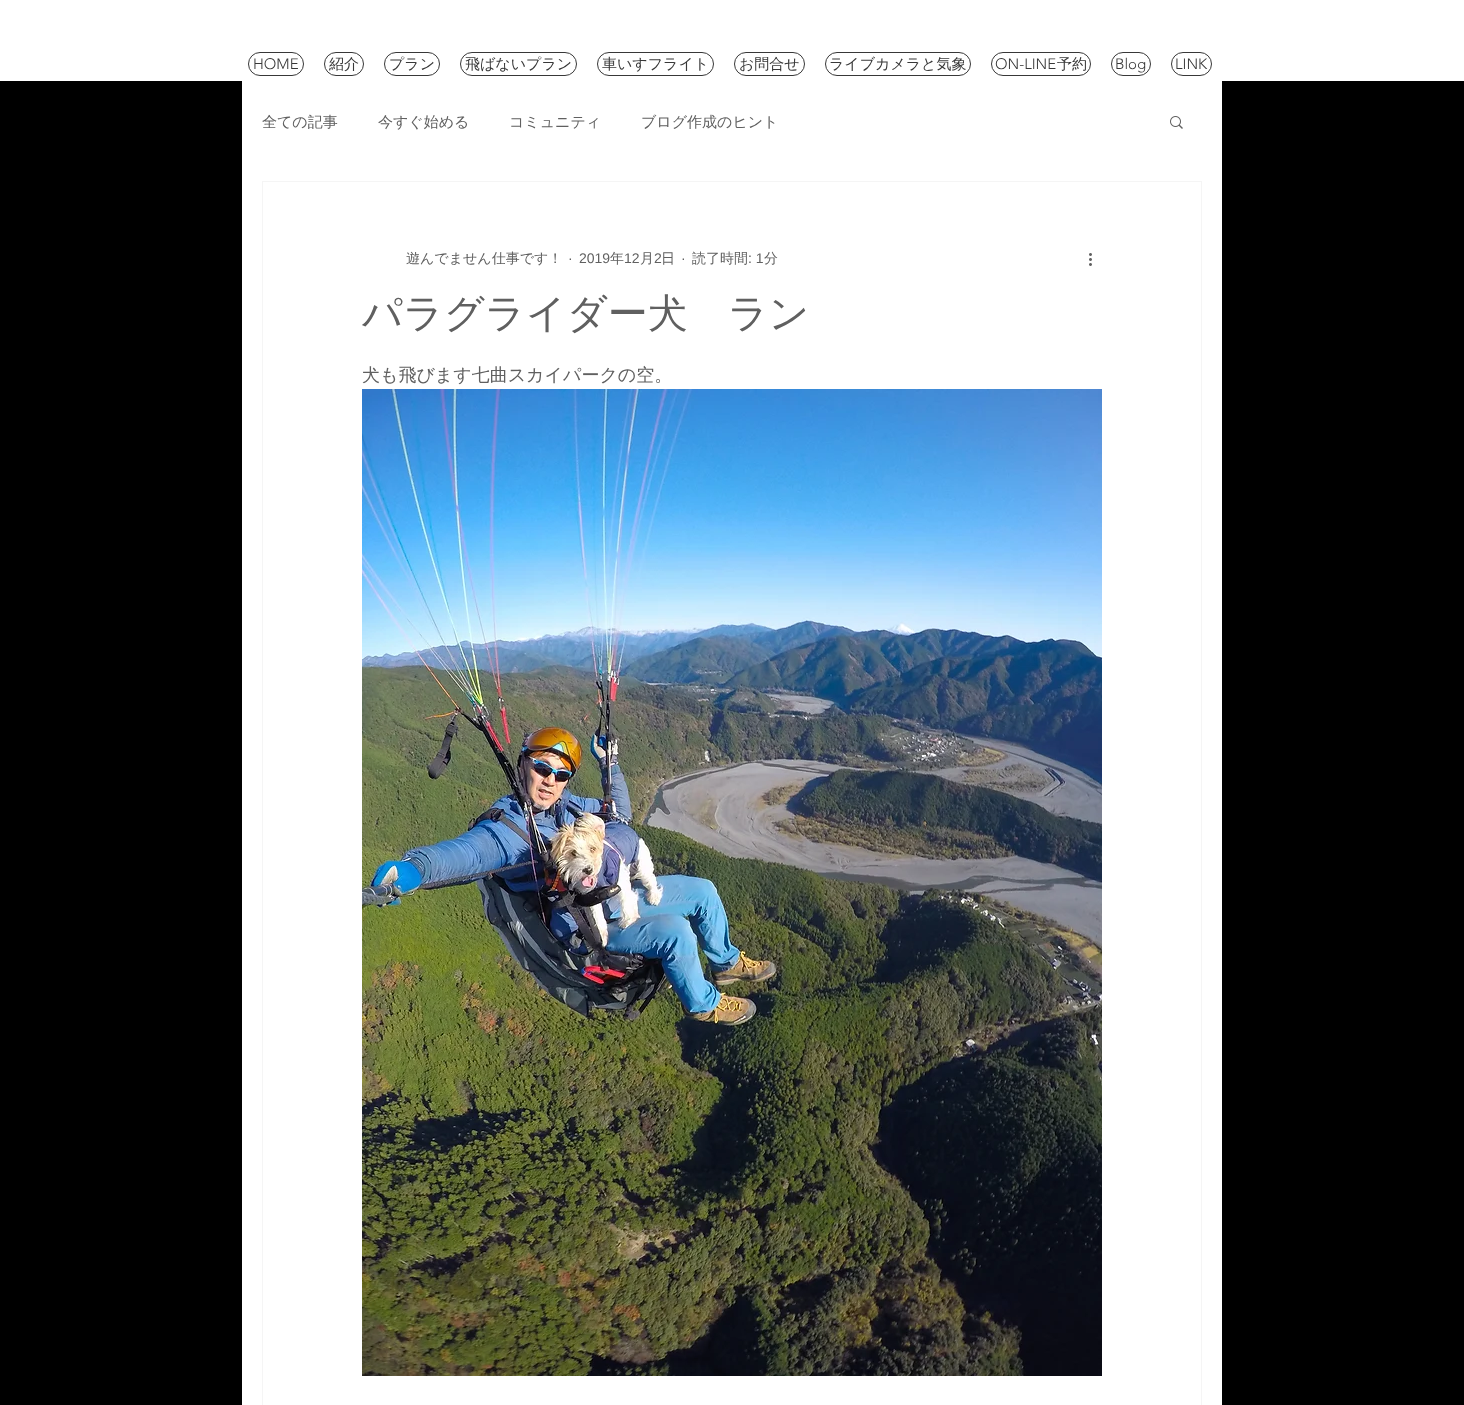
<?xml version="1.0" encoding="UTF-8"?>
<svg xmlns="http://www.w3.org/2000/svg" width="1464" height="1405">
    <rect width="100%" height="100%" fill="#000000"/>
    <rect x="0" y="0" width="1464" height="81" fill="#FFFFFF"/>
    <rect x="248.5" y="52.5" width="55" height="23" rx="11.5" fill="none" stroke="#383838"/>
    <text x="253" y="69" font-family="'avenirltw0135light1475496'" font-size="15" font-weight="300" fill="#383838">HOME</text>
    <rect x="324.5" y="52.5" width="39" height="23" rx="11.5" fill="none" stroke="#383838"/>
    <text x="329" y="69" font-family="WenQuanYi Zen Hei" font-size="15" font-weight="500" fill="#383838">紹介</text>
    <rect x="384.5" y="52.5" width="55" height="23" rx="11.5" fill="none" stroke="#383838"/>
    <text x="389" y="69" font-family="WenQuanYi Zen Hei" font-size="15" font-weight="500" fill="#383838">プラン</text>
    <rect x="460.5" y="52.5" width="116" height="23" rx="11.5" fill="none" stroke="#383838"/>
    <text x="465" y="69" font-family="WenQuanYi Zen Hei" font-size="15" font-weight="500" fill="#383838">飛ばないプラン</text>
    <rect x="597.5" y="52.5" width="116" height="23" rx="11.5" fill="none" stroke="#383838"/>
    <text x="602" y="69" font-family="WenQuanYi Zen Hei" font-size="15" font-weight="500" fill="#383838">車いすフライト</text>
    <rect x="734.5" y="52.5" width="70" height="23" rx="11.5" fill="none" stroke="#383838"/>
    <text x="739" y="69" font-family="WenQuanYi Zen Hei" font-size="15" font-weight="500" fill="#383838">お問合せ</text>
    <rect x="825.5" y="52.5" width="145" height="23" rx="11.5" fill="none" stroke="#383838"/>
    <text x="829" y="69" font-family="WenQuanYi Zen Hei" font-size="15" font-weight="500" fill="#383838">ライブカメラと気象</text>
    <rect x="991.5" y="52.5" width="99" height="23" rx="11.5" fill="none" stroke="#383838"/>
    <text x="995" y="69" font-family="'avenirltw0135light1475496'" font-size="15" font-weight="300" fill="#383838">ON-LINE</text>
    <text x="1057" y="69" font-family="WenQuanYi Zen Hei" font-size="15" font-weight="500" fill="#383838">予約</text>
    <rect x="1111.5" y="52.5" width="39" height="23" rx="11.5" fill="none" stroke="#383838"/>
    <text x="1115" y="69" font-family="'avenirltw0135light1475496'" font-size="15" font-weight="300" fill="#383838">Blog</text>
    <rect x="1171.5" y="52.5" width="40" height="23" rx="11.5" fill="none" stroke="#383838"/>
    <text x="1175" y="69" font-family="'avenirltw0135light1475496'" font-size="15" font-weight="300" fill="#383838">LINK</text>
    <rect x="242" y="81" width="980" height="1324" fill="#FFFFFF"/>
    <text x="262" y="127" font-family="WenQuanYi Zen Hei" font-size="15" font-weight="500" fill="#606060">全ての記事</text>
    <text x="378" y="127" font-family="WenQuanYi Zen Hei" font-size="15" font-weight="500" fill="#606060">今すぐ始める</text>
    <text x="509" y="127" font-family="WenQuanYi Zen Hei" font-size="15" font-weight="500" fill="#606060">コミュニティ</text>
    <text x="641" y="127" font-family="WenQuanYi Zen Hei" font-size="15" font-weight="500" fill="#606060">ブログ作成のヒント</text>
    <image x="1170" y="116" width="13" height="13" href="img_01.png"/>
    <rect x="262.5" y="181.5" width="939" height="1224" fill="none" stroke="#F5F5F5"/>
    <text x="406" y="263" font-family="WenQuanYi Zen Hei" font-size="14" font-weight="500" fill="#606060">遊んでません仕事です！</text>
    <text x="568" y="263" font-family="Liberation Sans" font-size="14" fill="#606060">·</text>
    <text x="579" y="263" font-family="Liberation Sans" font-size="14" fill="#606060">2019</text>
    <text x="610" y="263" font-family="WenQuanYi Zen Hei" font-size="14" font-weight="500" fill="#606060">年</text>
    <text x="624" y="263" font-family="Liberation Sans" font-size="14" fill="#606060">12</text>
    <text x="640" y="263" font-family="WenQuanYi Zen Hei" font-size="14" font-weight="500" fill="#606060">月</text>
    <text x="654" y="263" font-family="Liberation Sans" font-size="14" fill="#606060">2</text>
    <text x="661" y="263" font-family="WenQuanYi Zen Hei" font-size="14" font-weight="500" fill="#606060">日</text>
    <text x="681" y="263" font-family="Liberation Sans" font-size="14" fill="#606060">·</text>
    <text x="692" y="263" font-family="WenQuanYi Zen Hei" font-size="14" font-weight="500" fill="#606060">読了時間</text>
    <text x="748" y="263" font-family="Liberation Sans" font-size="14" fill="#606060">: 1</text>
    <text x="764" y="263" font-family="WenQuanYi Zen Hei" font-size="14" font-weight="500" fill="#606060">分</text>
    <image x="1089" y="253" width="3" height="13" href="img_02.png"/>
    <text x="362" y="327" font-family="WenQuanYi Zen Hei" font-size="40" font-weight="500" fill="#606060">パラグライダー犬　ラン</text>
    <text x="362" y="381" font-family="WenQuanYi Zen Hei" font-size="18" font-weight="500" fill="#606060">犬も飛びます七曲スカイパークの空。</text>
    <image x="362" y="389" width="740" height="987" href="img_03.png"/>
</svg>
